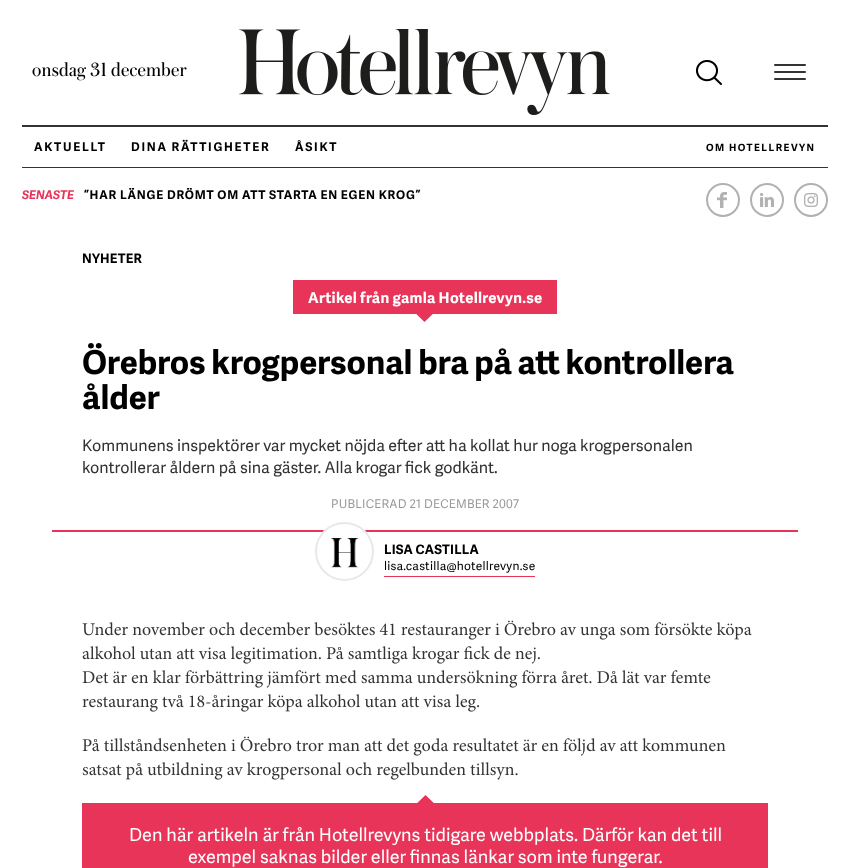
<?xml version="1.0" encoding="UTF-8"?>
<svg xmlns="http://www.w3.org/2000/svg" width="850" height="868">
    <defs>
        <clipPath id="clip1"><rect x="22" y="188" width="558" height="16"/></clipPath>
    </defs>
    <rect width="100%" height="100%" fill="#FFFFFF"/>
    <text x="32" y="76" font-family="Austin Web" font-size="20" font-weight="300" letter-spacing="0.25" fill="#000000">onsdag 31 december</text>
    <image x="239" y="29" width="371" height="86" href="img_01.png"/>
    <image x="696" y="60" width="26" height="25" href="img_02.png"/>
    <rect x="774" y="64" width="32" height="2" rx="1" fill="#333333"/>
    <rect x="774" y="71" width="32" height="2" rx="1" fill="#333333"/>
    <rect x="774" y="78" width="32" height="2" rx="1" fill="#333333"/>
    <rect x="22" y="125" width="806" height="2" fill="#333333"/>
    <text x="34" y="151" font-family="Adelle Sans" font-size="12" font-weight="700" letter-spacing="1.75" fill="#000000">AKTUELLT</text>
    <text x="131" y="151" font-family="Adelle Sans" font-size="12" font-weight="700" letter-spacing="1.75" fill="#000000">DINA RÄTTIGHETER</text>
    <text x="295" y="151" font-family="Adelle Sans" font-size="12" font-weight="700" letter-spacing="1.75" fill="#000000">ÅSIKT</text>
    <text x="706" y="151" font-family="Adelle Sans" font-size="10" font-weight="700" letter-spacing="1.5" fill="#000000">OM HOTELLREVYN</text>
    <rect x="22" y="167" width="806" height="1" fill="#333333"/>
    <text x="22" y="199" font-family="Adelle Sans" font-size="12" font-weight="700" font-style="italic" fill="#E73458">SENASTE</text>
    <g clip-path="url(#clip1)">
        <text x="84" y="199" font-family="Adelle Sans" font-size="12" font-weight="700" letter-spacing="0.8" fill="#000000">”HAR LÄNGE DRÖMT OM ATT STARTA EN EGEN KROG”</text>
    </g>
    <image x="717" y="192" width="10" height="16" href="img_03.png"/>
    <circle cx="723" cy="200" r="16" fill="none" stroke="#B1B1B1" stroke-width="2"/>
    <image x="760" y="193" width="14" height="14" href="img_04.png"/>
    <circle cx="767" cy="200" r="16" fill="none" stroke="#B1B1B1" stroke-width="2"/>
    <image x="804" y="193" width="14" height="14" href="img_05.png"/>
    <circle cx="811" cy="200" r="16" fill="none" stroke="#B1B1B1" stroke-width="2"/>
    <text x="82" y="263" font-family="Adelle Sans" font-size="13" font-weight="700" letter-spacing="0.25" fill="#000000">NYHETER</text>
    <rect x="293" y="280" width="264" height="34" fill="#E73458"/>
    <text x="308" y="303" font-family="Adelle Sans" font-size="15" font-weight="700" letter-spacing="0.3" fill="#FFFFFF">Artikel från gamla Hotellrevyn.se</text>
    <image x="416" y="314" width="17" height="8" href="img_06.png"/>
    <text font-family="Adelle Sans" font-size="33" font-weight="700" fill="#000000">
        <tspan x="82" y="374">Örebros krogpersonal bra på att kontrollera</tspan>
        <tspan x="82" y="409">ålder</tspan>
    </text>
    <text font-family="Adelle Sans" font-size="16" fill="#333333">
        <tspan x="82" y="451">Kommunens inspektörer var mycket nöjda efter att ha kollat hur noga krogpersonalen</tspan>
        <tspan x="82" y="473">kontrollerar åldern på sina gäster. Alla krogar fick godkänt.</tspan>
    </text>
    <text x="331" y="508" font-family="Adelle Sans" font-size="12" letter-spacing="0.25" fill="#999999">PUBLICERAD 21 DECEMBER 2007</text>
    <rect x="52" y="530" width="746" height="2" fill="#E73458"/>
    <image x="322" y="530" width="45" height="38" href="img_07.png"/>
    <circle cx="344.5" cy="551.5" r="28.5" fill="none" stroke="#E8E8E8" stroke-width="2"/>
    <text x="384" y="554" font-family="Adelle Sans" font-size="13" font-weight="700" letter-spacing="0.25" fill="#000000">LISA CASTILLA</text>
    <rect x="384" y="576" width="151" height="1" fill="#E73458"/>
    <text x="384" y="570" font-family="Adelle Sans" font-size="12" letter-spacing="0.25" fill="#000000">lisa.castilla@hotellrevyn.se</text>
    <image x="82" y="620" width="670" height="20" href="img_08.png"/>
    <image x="82" y="646" width="458" height="18" href="img_09.png"/>
    <image x="82" y="670" width="629" height="18" href="img_10.png"/>
    <image x="82" y="694" width="398" height="18" href="img_11.png"/>
    <image x="82" y="736" width="644" height="20" href="img_12.png"/>
    <image x="82" y="762" width="436" height="18" href="img_13.png"/>
    <rect x="82" y="803" width="686" height="65" fill="#E73458"/>
    <image x="417" y="795" width="17" height="8" href="img_14.png"/>
    <text x="129" y="841" font-family="Adelle Sans" font-size="18" fill="#FFFFFF">Den här artikeln är från Hotellrevyns tidigare webbplats. Därför kan det till</text>
    <text x="188" y="863" font-family="Adelle Sans" font-size="18" fill="#FFFFFF">exempel saknas bilder eller finnas länkar som inte fungerar.</text>
</svg>
